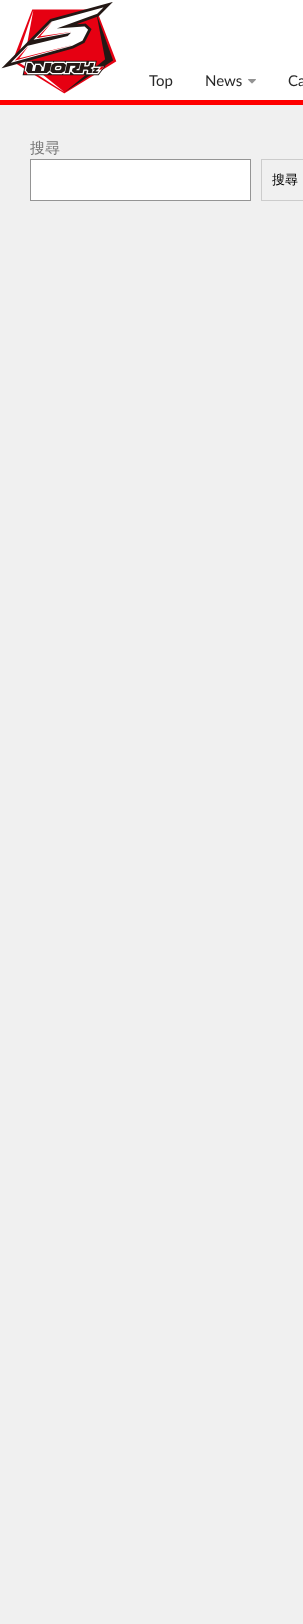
<?xml version="1.0" encoding="UTF-8"?>
<svg xmlns="http://www.w3.org/2000/svg" width="303" height="1624">
    <rect width="100%" height="100%" fill="#FFFFFF"/>
    <rect x="0" y="100" width="303" height="5" fill="#FF0000"/>
    <image x="1" y="2" width="116" height="92" href="img_01.png"/>
    <text x="149" y="86" font-family="Lato" font-size="15" fill="#282828">Top</text>
    <text x="205" y="86" font-family="Lato" font-size="15" fill="#282828">News</text>
    <image x="248" y="79" width="8" height="5" href="img_02.png"/>
    <text x="288" y="86" font-family="Lato" font-size="15" fill="#282828">Ca</text>
    <rect x="0" y="105" width="303" height="1519" fill="#F0F0F0"/>
    <text x="30" y="153" font-family="WenQuanYi Zen Hei" font-size="15" font-weight="500" fill="#777777">搜尋</text>
    <rect x="30.5" y="159.5" width="220" height="41" fill="#FFFFFF" stroke="#949494"/>
    <rect x="261.5" y="159.5" width="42" height="41" fill="none" stroke="#CCCCCC"/>
    <text x="272" y="184" font-family="WenQuanYi Zen Hei" font-size="13" font-weight="500" fill="#000000">搜尋</text>
</svg>
